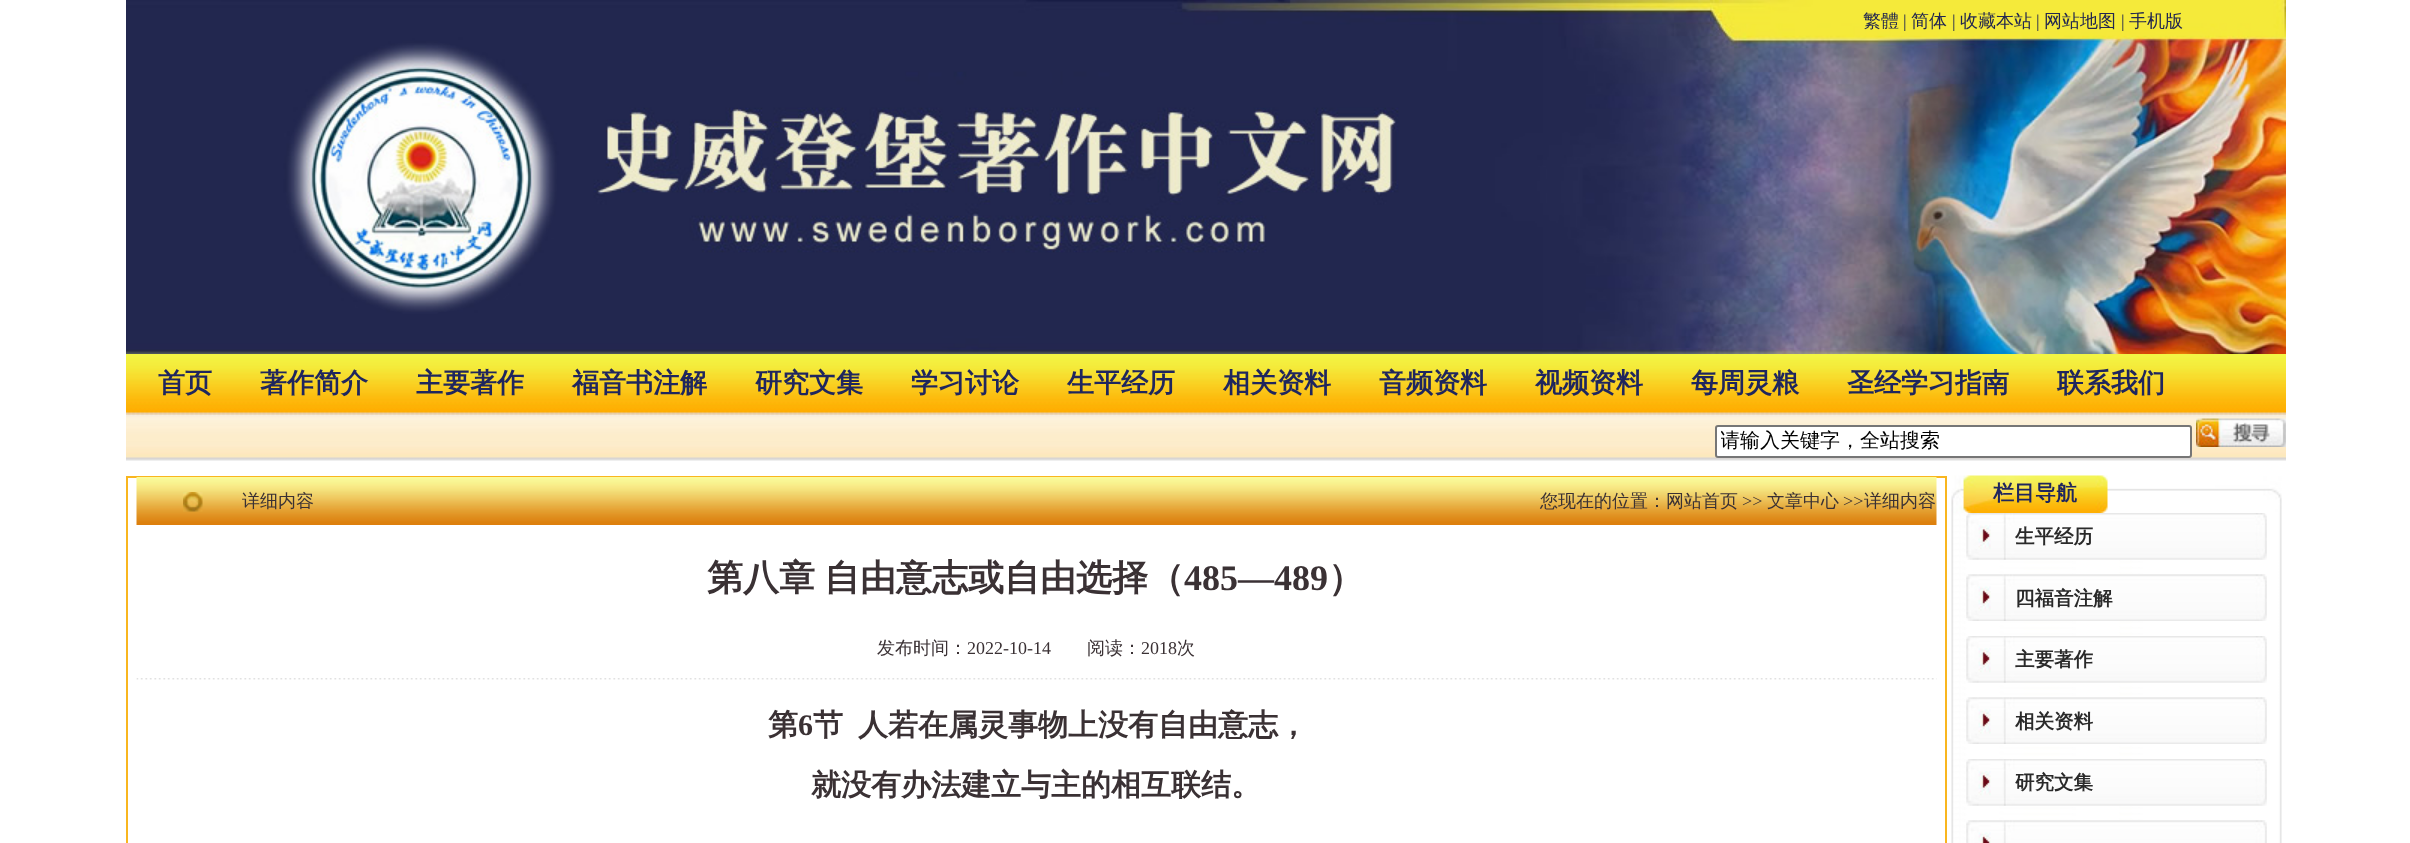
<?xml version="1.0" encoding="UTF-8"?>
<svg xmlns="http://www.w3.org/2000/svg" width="2410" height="843">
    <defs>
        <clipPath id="clip1"><rect x="1721" y="428" width="465" height="27"/></clipPath>
    </defs>
    <rect width="100%" height="100%" fill="#FFFFFF"/>
    <image x="126" y="0" width="2160" height="354" href="img_01.png"/>
    <text x="1863" y="27" font-family="WenQuanYi Zen Hei" font-size="18" font-weight="500" fill="#222750">繁體</text>
    <text x="1903" y="27" font-family="Liberation Serif" font-size="18" fill="#222750">|</text>
    <text x="1911" y="27" font-family="WenQuanYi Zen Hei" font-size="18" font-weight="500" fill="#222750">简体</text>
    <text x="1952" y="27" font-family="Liberation Serif" font-size="18" fill="#222750">|</text>
    <text x="1960" y="27" font-family="WenQuanYi Zen Hei" font-size="18" font-weight="500" fill="#222750">收藏本站</text>
    <text x="2036" y="27" font-family="Liberation Serif" font-size="18" fill="#222750">|</text>
    <text x="2044" y="27" font-family="WenQuanYi Zen Hei" font-size="18" font-weight="500" fill="#222750">网站地图</text>
    <text x="2121" y="27" font-family="Liberation Serif" font-size="18" fill="#222750">|</text>
    <text x="2129" y="27" font-family="WenQuanYi Zen Hei" font-size="18" font-weight="500" fill="#222750">手机版</text>
    <image x="126" y="354" width="2160" height="62" href="img_02.png"/>
    <text x="158" y="392" font-family="WenQuanYi Zen Hei" font-size="27" font-weight="700" fill="#1F265E">首页</text>
    <text x="260" y="392" font-family="WenQuanYi Zen Hei" font-size="27" font-weight="700" fill="#1F265E">著作简介</text>
    <text x="416" y="392" font-family="WenQuanYi Zen Hei" font-size="27" font-weight="700" fill="#1F265E">主要著作</text>
    <text x="572" y="392" font-family="WenQuanYi Zen Hei" font-size="27" font-weight="700" fill="#1F265E">福音书注解</text>
    <text x="755" y="392" font-family="WenQuanYi Zen Hei" font-size="27" font-weight="700" fill="#1F265E">研究文集</text>
    <text x="911" y="392" font-family="WenQuanYi Zen Hei" font-size="27" font-weight="700" fill="#1F265E">学习讨论</text>
    <text x="1067" y="392" font-family="WenQuanYi Zen Hei" font-size="27" font-weight="700" fill="#1F265E">生平经历</text>
    <text x="1223" y="392" font-family="WenQuanYi Zen Hei" font-size="27" font-weight="700" fill="#1F265E">相关资料</text>
    <text x="1379" y="392" font-family="WenQuanYi Zen Hei" font-size="27" font-weight="700" fill="#1F265E">音频资料</text>
    <text x="1535" y="392" font-family="WenQuanYi Zen Hei" font-size="27" font-weight="700" fill="#1F265E">视频资料</text>
    <text x="1691" y="392" font-family="WenQuanYi Zen Hei" font-size="27" font-weight="700" fill="#1F265E">每周灵粮</text>
    <text x="1847" y="392" font-family="WenQuanYi Zen Hei" font-size="27" font-weight="700" fill="#1F265E">圣经学习指南</text>
    <text x="2057" y="392" font-family="WenQuanYi Zen Hei" font-size="27" font-weight="700" fill="#1F265E">联系我们</text>
    <image x="126" y="416" width="2160" height="45" href="img_03.png"/>
    <rect x="1716" y="426" width="475" height="31" rx="2" fill="#FFFFFF" stroke="#767676" stroke-width="2"/>
    <g clip-path="url(#clip1)">
        <text x="1720" y="447" font-family="WenQuanYi Zen Hei" font-size="20" font-weight="500" fill="#000000">请输入关键字，全站搜索</text>
    </g>
    <image x="2196" y="418" width="90" height="29" href="img_04.png"/>
    <rect x="127" y="477" width="1819" height="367" fill="none" stroke="#F9B61F" stroke-width="2"/>
    <image x="136" y="477" width="1801" height="48" href="img_05.png"/>
    <image x="183" y="492" width="20" height="20" href="img_06.png"/>
    <text x="242" y="507" font-family="WenQuanYi Zen Hei" font-size="18" font-weight="500" fill="#3A3134">详细内容</text>
    <text x="1540" y="507" font-family="WenQuanYi Zen Hei" font-size="18" font-weight="500" fill="#3A3134">您现在的位置：网站首页</text>
    <text x="1742" y="507" font-family="Liberation Serif" font-size="18" fill="#3A3134">&gt;&gt;</text>
    <text x="1767" y="507" font-family="WenQuanYi Zen Hei" font-size="18" font-weight="500" fill="#3A3134">文章中心</text>
    <text x="1843" y="507" font-family="Liberation Serif" font-size="18" fill="#3A3134">&gt;&gt;</text>
    <text x="1864" y="507" font-family="WenQuanYi Zen Hei" font-size="18" font-weight="500" fill="#3A3134">详细内容</text>
    <text x="707" y="590" font-family="WenQuanYi Zen Hei" font-size="36" font-weight="700" fill="#3A3134">第八章</text>
    <text x="824" y="590" font-family="WenQuanYi Zen Hei" font-size="36" font-weight="700" fill="#3A3134">自由意志或自由选择（</text>
    <text x="1184" y="590" font-family="Liberation Serif" font-size="36" font-weight="700" fill="#3A3134">485—489</text>
    <text x="1328" y="590" font-family="WenQuanYi Zen Hei" font-size="36" font-weight="700" fill="#3A3134">）</text>
    <text x="877" y="654" font-family="WenQuanYi Zen Hei" font-size="18" font-weight="500" fill="#3A3134">发布时间：</text>
    <text x="967" y="654" font-family="Liberation Serif" font-size="18" fill="#3A3134">2022-10-14</text>
    <text x="1087" y="654" font-family="WenQuanYi Zen Hei" font-size="18" font-weight="500" fill="#3A3134">阅读：</text>
    <text x="1141" y="654" font-family="Liberation Serif" font-size="18" fill="#3A3134">2018</text>
    <text x="1177" y="654" font-family="WenQuanYi Zen Hei" font-size="18" font-weight="500" fill="#3A3134">次</text>
    <image x="136" y="678" width="1801" height="2" href="img_07.png"/>
    <text x="768" y="735" font-family="WenQuanYi Zen Hei" font-size="30" font-weight="700" fill="#3A3134">第</text>
    <text x="798" y="735" font-family="Liberation Serif" font-size="30" font-weight="700" fill="#3A3134">6</text>
    <text x="813" y="735" font-family="WenQuanYi Zen Hei" font-size="30" font-weight="700" fill="#3A3134">节</text>
    <text x="858" y="735" font-family="WenQuanYi Zen Hei" font-size="30" font-weight="700" fill="#3A3134">人若在属灵事物上没有自由意志，</text>
    <text x="811" y="795" font-family="WenQuanYi Zen Hei" font-size="30" font-weight="700" fill="#3A3134">就没有办法建立与主的相互联结。</text>
    <image x="1951" y="475" width="331" height="38" href="img_08.png"/>
    <text x="1993" y="500" font-family="WenQuanYi Zen Hei" font-size="21" font-weight="700" fill="#1F265E">栏目导航</text>
    <image x="1951" y="513" width="331" height="330" href="img_09.png"/>
    <image x="1966" y="513" width="301" height="47" href="img_10.png"/>
    <image x="1966" y="516" width="301" height="44" href="img_11.png"/>
    <text x="2015" y="543" font-family="WenQuanYi Zen Hei" font-size="19.5" font-weight="700" fill="#2A2A2A">生平经历</text>
    <image x="1966" y="574" width="301" height="47" href="img_12.png"/>
    <image x="1966" y="574" width="301" height="44" href="img_13.png"/>
    <text x="2015" y="605" font-family="WenQuanYi Zen Hei" font-size="19.5" font-weight="700" fill="#2A2A2A">四福音注解</text>
    <image x="1966" y="636" width="301" height="47" href="img_14.png"/>
    <image x="1966" y="639" width="301" height="44" href="img_15.png"/>
    <text x="2015" y="666" font-family="WenQuanYi Zen Hei" font-size="19.5" font-weight="700" fill="#2A2A2A">主要著作</text>
    <image x="1966" y="697" width="301" height="47" href="img_16.png"/>
    <image x="1966" y="697" width="301" height="44" href="img_17.png"/>
    <text x="2015" y="728" font-family="WenQuanYi Zen Hei" font-size="19.5" font-weight="700" fill="#2A2A2A">相关资料</text>
    <image x="1966" y="759" width="301" height="47" href="img_10.png"/>
    <image x="1966" y="762" width="301" height="44" href="img_11.png"/>
    <text x="2015" y="789" font-family="WenQuanYi Zen Hei" font-size="19.5" font-weight="700" fill="#2A2A2A">研究文集</text>
    <image x="1966" y="820" width="301" height="23" href="img_18.png"/>
    <image x="1966" y="820" width="301" height="23" href="img_19.png"/>
</svg>
